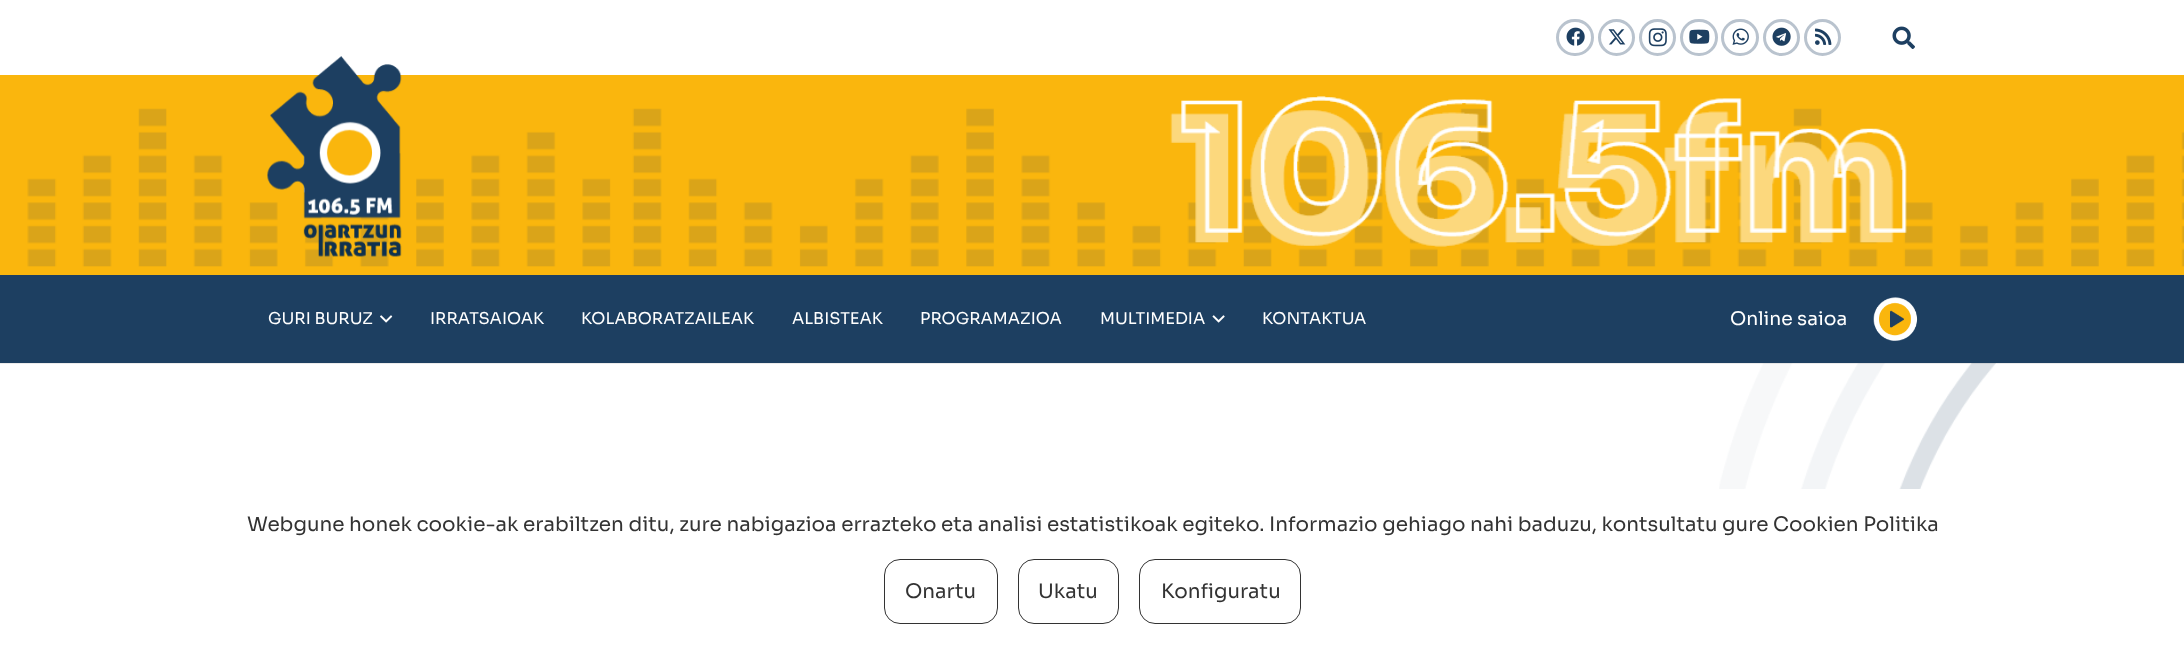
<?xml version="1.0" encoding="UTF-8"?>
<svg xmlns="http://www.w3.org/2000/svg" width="2184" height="646">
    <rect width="100%" height="100%" fill="#FFFFFF"/>
    <rect x="1557.5" y="20.5" width="35" height="34" rx="17" fill="none" stroke="#B9C3CE" stroke-width="3"/>
    <image x="1566" y="27" width="19" height="19" href="img_01.png"/>
    <circle cx="1616.5" cy="37.5" r="17" fill="none" stroke="#B9C3CE" stroke-width="3"/>
    <image x="1608" y="29" width="18" height="16" href="img_02.png"/>
    <circle cx="1657.5" cy="37.5" r="17" fill="none" stroke="#B9C3CE" stroke-width="3"/>
    <image x="1648" y="28" width="19" height="19" href="img_03.png"/>
    <rect x="1681.5" y="20.5" width="35" height="34" rx="17" fill="none" stroke="#B9C3CE" stroke-width="3"/>
    <image x="1689" y="29" width="21" height="15" href="img_04.png"/>
    <rect x="1722.5" y="20.5" width="35" height="34" rx="17" fill="none" stroke="#B9C3CE" stroke-width="3"/>
    <image x="1732" y="28" width="17" height="17" href="img_05.png"/>
    <circle cx="1781.5" cy="37.5" r="17" fill="none" stroke="#B9C3CE" stroke-width="3"/>
    <image x="1772" y="27" width="19" height="19" href="img_06.png"/>
    <circle cx="1822.5" cy="37.5" r="17" fill="none" stroke="#B9C3CE" stroke-width="3"/>
    <image x="1815" y="28" width="17" height="17" href="img_07.png"/>
    <image x="1892" y="26" width="23" height="23" href="img_08.png"/>
    <rect x="0" y="75" width="2184" height="200" fill="#FAB60D"/>
    <image x="27" y="108" width="2157" height="159" href="img_09.png"/>
    <image x="267" y="56" width="135" height="201" href="img_10.png"/>
    <image x="1170" y="96" width="737" height="151" href="img_11.png"/>
    <image x="1719" y="363" width="277" height="126" href="img_15.png"/>
    <rect x="0" y="363" width="2184" height="1" fill="#000000" fill-opacity="0.08"/>
    <rect x="0" y="275" width="2184" height="88" fill="#1D3F61"/>
    <text x="268" y="324" font-family="Sora" font-size="16.25" fill="#FFFFFF">GURI BURUZ</text>
    <image x="380" y="315" width="13" height="8" href="img_12.png"/>
    <text x="430" y="324" font-family="Sora" font-size="16.25" fill="#FFFFFF">IRRATSAIOAK</text>
    <text x="581" y="324" font-family="Sora" font-size="16.25" fill="#FFFFFF">KOLABORATZAILEAK</text>
    <text x="792" y="324" font-family="Sora" font-size="16.25" fill="#FFFFFF">ALBISTEAK</text>
    <text x="920" y="324" font-family="Sora" font-size="16.25" fill="#FFFFFF">PROGRAMAZIOA</text>
    <text x="1100" y="324" font-family="Sora" font-size="16.25" fill="#FFFFFF">MULTIMEDIA</text>
    <image x="1212" y="315" width="13" height="8" href="img_13.png"/>
    <text x="1262" y="324" font-family="Sora" font-size="16.25" fill="#FFFFFF">KONTAKTUA</text>
    <text x="1730" y="325" font-family="Sora" font-size="18.75" fill="#FFFFFF">Online saioa</text>
    <image x="1873" y="297" width="45" height="44" href="img_14.png"/>
    <text x="247" y="531" font-family="Sora" font-size="20" fill="#333333">Webgune honek cookie-ak erabiltzen ditu, zure nabigazioa errazteko eta analisi estatistikoak egiteko. Informazio gehiago nahi baduzu, kontsultatu gure Cookien Politika</text>
    <rect x="884.5" y="559.5" width="113" height="64" rx="15.5" fill="none" stroke="#333333"/>
    <text x="905" y="598" font-family="Sora" font-size="20" fill="#333333">Onartu</text>
    <rect x="1018.5" y="559.5" width="100" height="64" rx="15.5" fill="none" stroke="#333333"/>
    <text x="1038" y="598" font-family="Sora" font-size="20" fill="#333333">Ukatu</text>
    <rect x="1139.5" y="559.5" width="161" height="64" rx="15.5" fill="none" stroke="#333333"/>
    <text x="1161" y="598" font-family="Sora" font-size="20" fill="#333333">Konfiguratu</text>
</svg>
